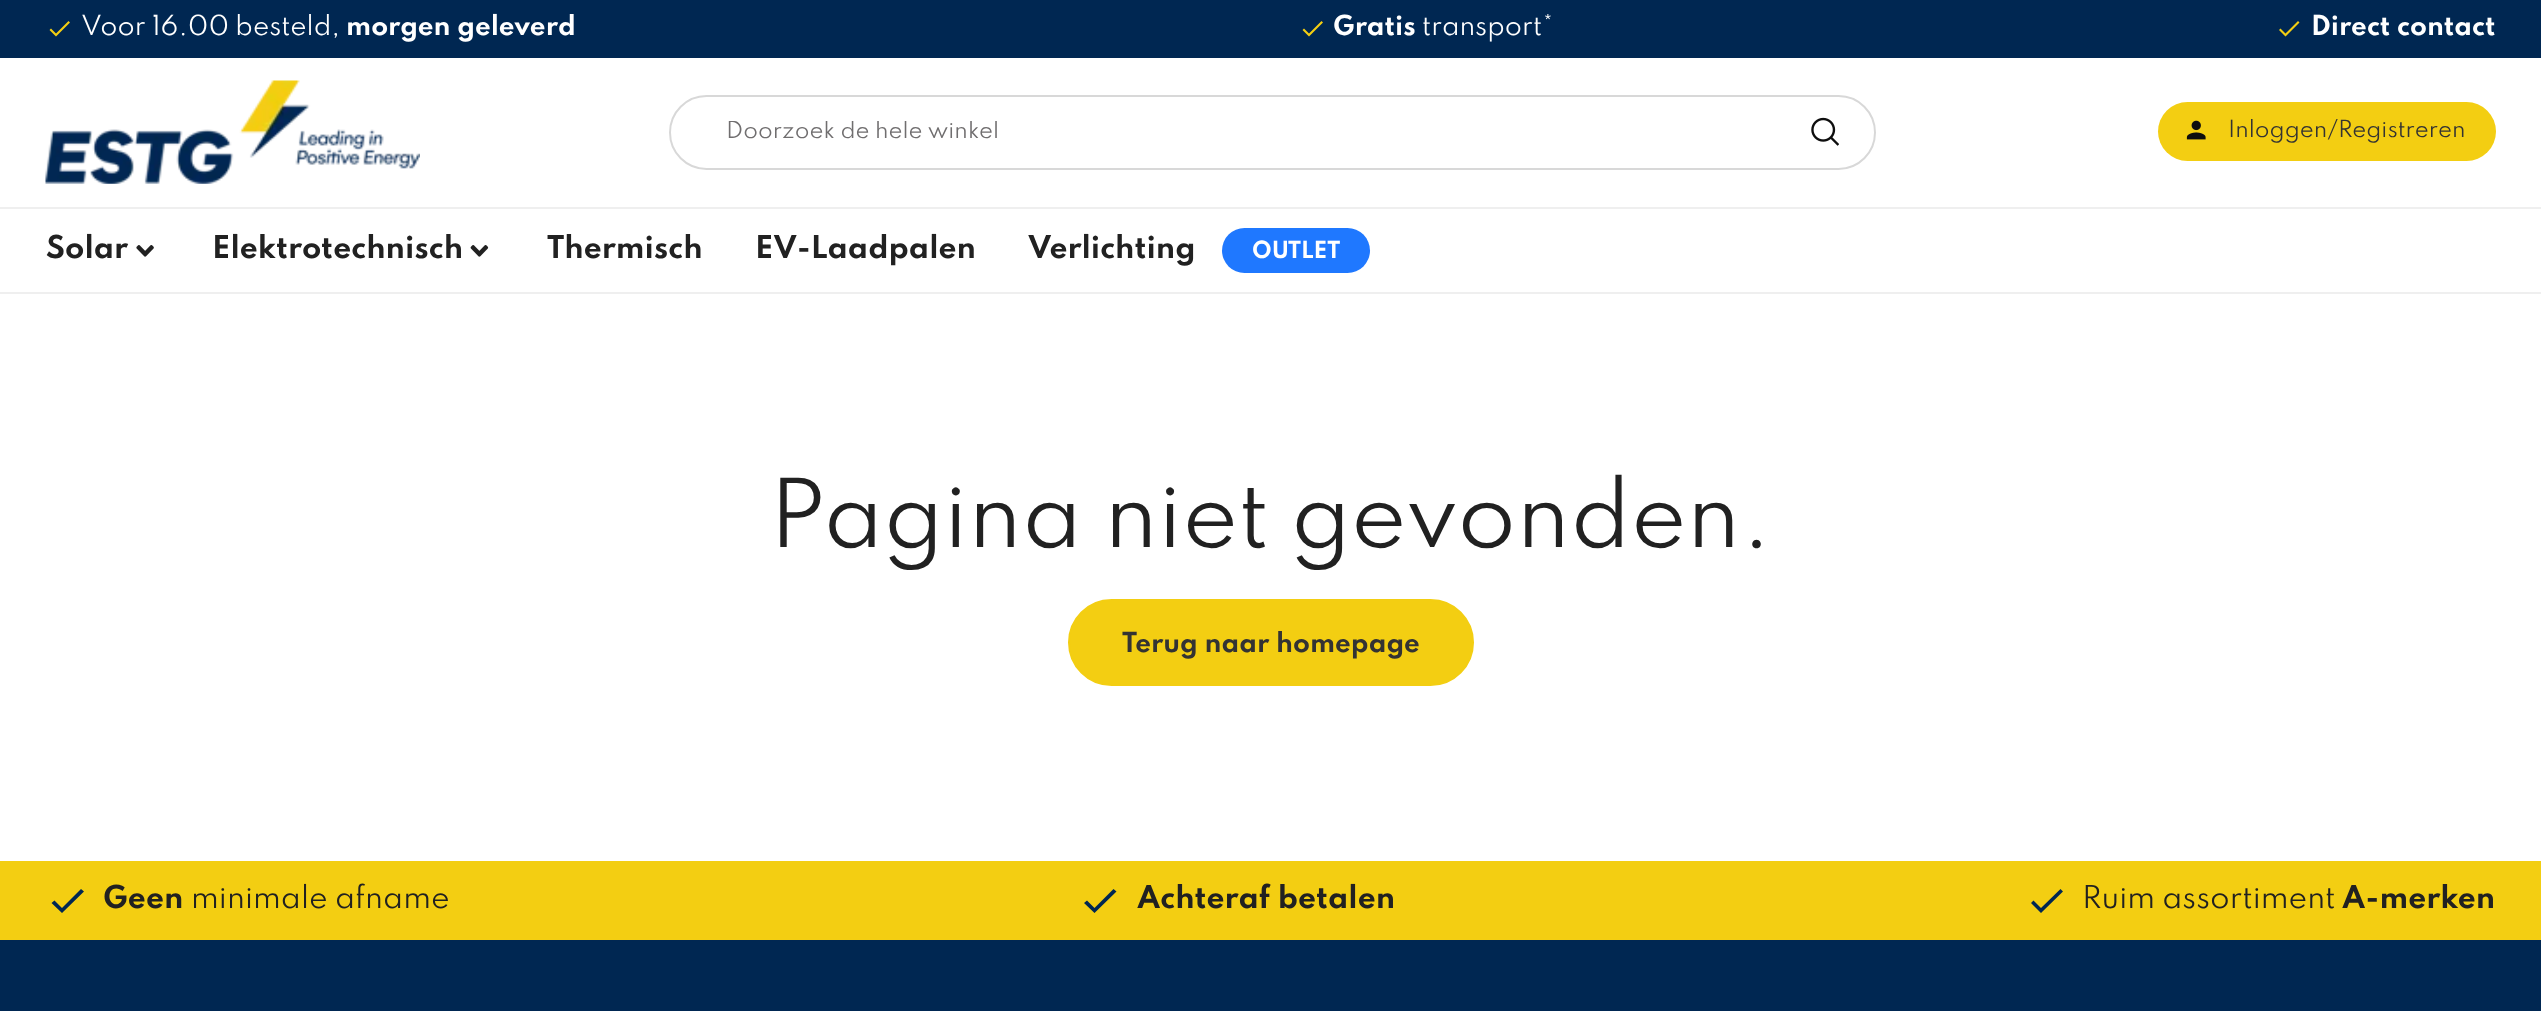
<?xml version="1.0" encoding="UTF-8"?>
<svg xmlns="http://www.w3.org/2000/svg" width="2541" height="1011">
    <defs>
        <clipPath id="clip1"><rect x="726" y="121" width="1050" height="24"/></clipPath>
    </defs>
    <rect width="100%" height="100%" fill="#FFFFFF"/>
    <rect x="0" y="0" width="2541" height="58" fill="#002752"/>
    <path d="M 56 33.5 L 68.5 21 L 70 22.5 L 56 36.5 L 49.5 30 L 51 28.5 Z" fill="#F3CE12"/>
    <text x="81" y="35" font-family="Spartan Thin" font-size="24.5" font-weight="100" fill="#FFFFFF">Voor 16.00 besteld,</text>
    <text x="346" y="35" font-family="'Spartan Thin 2'" font-size="24.5" font-weight="100" fill="#FFFFFF">morgen geleverd</text>
    <path d="M 1309 33.5 L 1321.5 21 L 1323 22.5 L 1309 36.5 L 1302.5 30 L 1304 28.5 Z" fill="#F3CE12"/>
    <text x="1333" y="35" font-family="'Spartan Thin 2'" font-size="24.5" font-weight="100" fill="#FFFFFF">Gratis</text>
    <text x="1422" y="35" font-family="Spartan Thin" font-size="24.5" font-weight="100" fill="#FFFFFF">transport*</text>
    <path d="M 2285.5 33.5 L 2298 21 L 2299.5 22.5 L 2285.5 36.5 L 2279 30 L 2280.5 28.5 Z" fill="#F3CE12"/>
    <text x="2311" y="35" font-family="'Spartan Thin 2'" font-size="24.5" font-weight="100" fill="#FFFFFF">Direct contact</text>
    <image x="45" y="80" width="375" height="104" href="img_01.png"/>
    <rect x="670" y="96" width="1205" height="73" rx="36.5" fill="none" stroke="#D8D8D8" stroke-width="2"/>
    <g clip-path="url(#clip1)">
        <text x="726" y="138" font-family="Spartan Thin" font-size="21" font-weight="100" fill="#706E6F">Doorzoek de hele winkel</text>
    </g>
    <image x="1811" y="117" width="28" height="29" href="img_02.png"/>
    <rect x="2158" y="102" width="338" height="59" rx="29.5" fill="#F3CE12"/>
    <image x="2186" y="120" width="20" height="20" href="img_03.png"/>
    <text x="2228" y="137" font-family="Spartan Thin" font-size="21" font-weight="100" fill="#333333">Inloggen/Registreren</text>
    <rect x="0" y="207" width="2541" height="2" fill="#EFEFEF"/>
    <rect x="0" y="292" width="2541" height="2" fill="#EFEFEF"/>
    <text x="46" y="258" font-family="'Spartan Thin 2'" font-size="28" font-weight="100" fill="#212121">Solar</text>
    <image x="136" y="245" width="18" height="12" href="img_04.png"/>
    <text x="212" y="258" font-family="'Spartan Thin 2'" font-size="28" font-weight="100" fill="#212121">Elektrotechnisch</text>
    <image x="470" y="245" width="19" height="12" href="img_05.png"/>
    <text x="547" y="258" font-family="'Spartan Thin 2'" font-size="28" font-weight="100" fill="#212121">Thermisch</text>
    <text x="755" y="258" font-family="'Spartan Thin 2'" font-size="28" font-weight="100" fill="#212121">EV-Laadpalen</text>
    <text x="1028" y="258" font-family="'Spartan Thin 2'" font-size="28" font-weight="100" fill="#212121">Verlichting</text>
    <rect x="1222" y="228" width="148" height="45" rx="22.5" fill="#1F78FF"/>
    <text x="1252" y="258" font-family="'Spartan Thin 2'" font-size="21" font-weight="100" fill="#FFFFFF">OUTLET</text>
    <text x="769" y="547" font-family="Spartan Thin" font-size="84" font-weight="100" fill="#212121">Pagina niet gevonden.</text>
    <rect x="1069" y="600" width="404" height="85" rx="42.5" fill="#F3CE12" stroke="#F3CE12" stroke-width="2"/>
    <text x="1122" y="652" font-family="'Spartan Thin 2'" font-size="24.5" font-weight="100" fill="#333333">Terug naar homepage</text>
    <rect x="0" y="861" width="2541" height="79" fill="#F3CE12"/>
    <path d="M 62 908 L 81 889 L 84 891.5 L 62 913 L 51.5 903 L 54.5 900.5 Z" fill="#002752"/>
    <text x="103" y="908" font-family="'Spartan Thin 2'" font-size="28" font-weight="100" fill="#212121">Geen</text>
    <text x="191" y="908" font-family="Spartan Thin" font-size="28" font-weight="100" fill="#212121">minimale afname</text>
    <path d="M 1094.5 908 L 1113.5 889 L 1116.5 891.5 L 1094.5 913 L 1084 903 L 1087 900.5 Z" fill="#002752"/>
    <text x="1137" y="908" font-family="'Spartan Thin 2'" font-size="28" font-weight="100" fill="#212121">Achteraf betalen</text>
    <path d="M 2041 908 L 2060.5 889 L 2063 891.5 L 2041 913 L 2031 903 L 2033.5 900.5 Z" fill="#002752"/>
    <text x="2082" y="908" font-family="Spartan Thin" font-size="28" font-weight="100" fill="#212121">Ruim assortiment</text>
    <text x="2342" y="908" font-family="'Spartan Thin 2'" font-size="28" font-weight="100" fill="#212121">A-merken</text>
    <rect x="0" y="940" width="2541" height="71" fill="#002752"/>
</svg>
